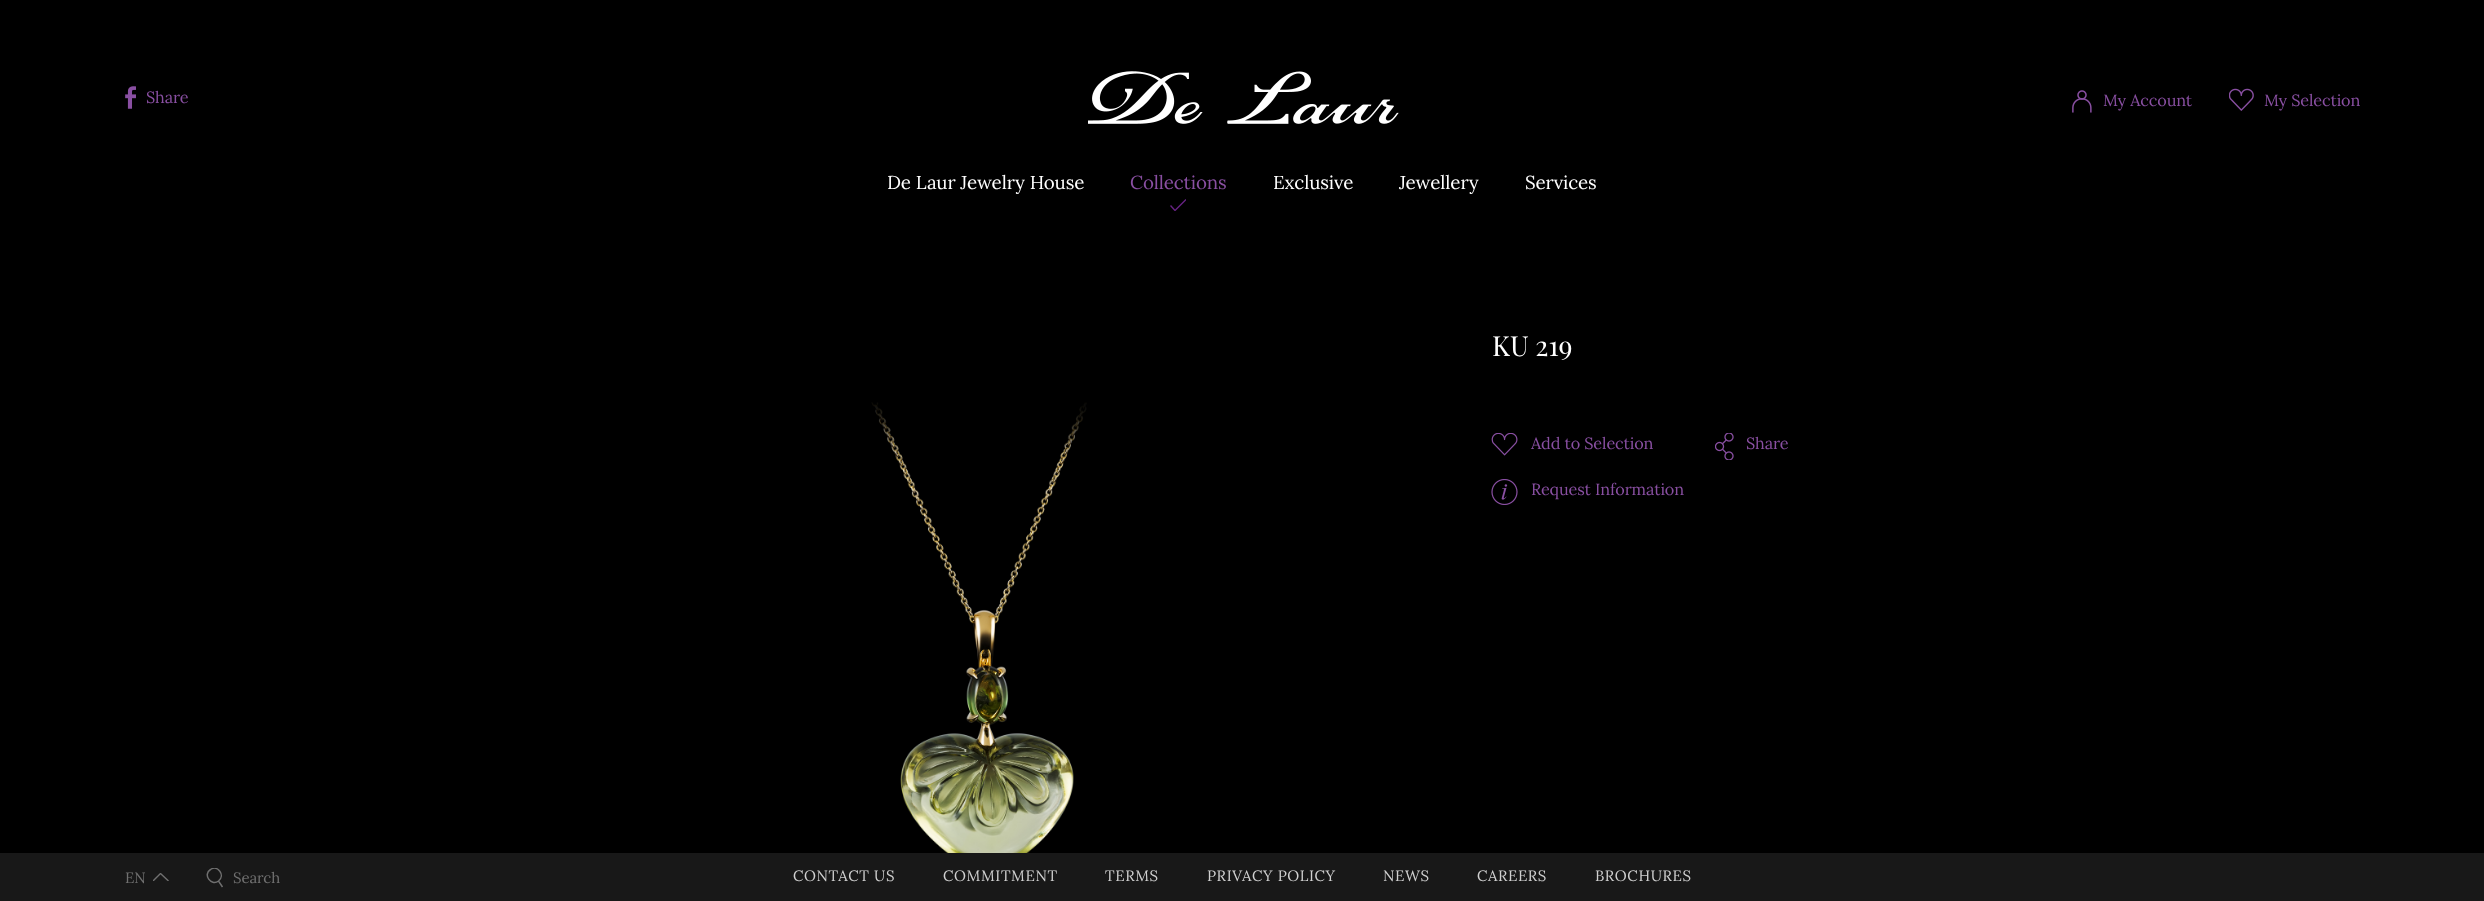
<?xml version="1.0" encoding="UTF-8"?>
<svg xmlns="http://www.w3.org/2000/svg" width="2484" height="901">
    <defs>
        <clipPath id="clip1"><rect x="1170" y="199" width="16" height="12"/></clipPath>
        <clipPath id="clip2"><rect x="153" y="873" width="16" height="8"/></clipPath>
        <clipPath id="clip3"><rect x="206" y="868" width="18" height="20"/></clipPath>
    </defs>
    <rect width="100%" height="100%" fill="#000000"/>
    <image x="125" y="86" width="11" height="23" href="img_01.png"/>
    <text x="146" y="103" font-family="Lora" font-size="16.25" letter-spacing="-0.1" fill="#894FA2">Share</text>
    <image x="1088" y="71" width="311" height="53" href="img_02.png"/>
    <image x="2072" y="90" width="20" height="23" href="img_03.png"/>
    <text x="2103" y="106" font-family="Lora" font-size="16.25" letter-spacing="-0.1" fill="#894FA2">My Account</text>
    <image x="2229" y="88" width="25" height="23" href="img_04.png"/>
    <text x="2264" y="106" font-family="Lora" font-size="16.25" letter-spacing="-0.1" fill="#894FA2">My Selection</text>
    <text x="887" y="189" font-family="Lora" font-size="18.75" letter-spacing="-0.1" fill="#FFFFFF">De Laur Jewelry House</text>
    <text x="1130" y="189" font-family="Lora" font-size="18.75" letter-spacing="-0.1" fill="#894FA2">Collections</text>
    <g clip-path="url(#clip1)">
        <path d="M 1170.5 205.5 L 1175 210.5 L 1186 199.5" fill="none" stroke="#662282" stroke-width="1.4"/>
    </g>
    <text x="1273" y="189" font-family="Lora" font-size="18.75" letter-spacing="-0.1" fill="#FFFFFF">Exclusive</text>
    <text x="1399" y="189" font-family="Lora" font-size="18.75" letter-spacing="-0.1" fill="#FFFFFF">Jewellery</text>
    <text x="1525" y="189" font-family="Lora" font-size="18.75" letter-spacing="-0.1" fill="#FFFFFF">Services</text>
    <image x="871" y="402" width="216" height="451" href="img_05.png"/>
    <text x="1492" y="356" font-family="Playfair Display SC" font-size="27.5" letter-spacing="-0.1" fill="#FFFFFF">KU 219</text>
    <image x="1491" y="433" width="27" height="23" href="img_06.png"/>
    <text x="1531" y="449" font-family="Lora" font-size="16.25" letter-spacing="-0.1" fill="#894FA2">Add to Selection</text>
    <image x="1715" y="433" width="19" height="27" href="img_07.png"/>
    <text x="1746" y="449" font-family="Lora" font-size="16.25" letter-spacing="-0.1" fill="#894FA2">Share</text>
    <image x="1491" y="479" width="27" height="26" href="img_08.png"/>
    <text x="1531" y="495" font-family="Lora" font-size="16.25" letter-spacing="-0.1" fill="#894FA2">Request Information</text>
    <rect x="0" y="853" width="2484" height="48" fill="#181818"/>
    <text x="125" y="883" font-family="Lora" font-size="15" fill="#707070">EN</text>
    <g clip-path="url(#clip2)">
        <path d="M 153 881 L 160.5 873.5 L 168.5 881" fill="none" stroke="#707070" stroke-width="1.4"/>
    </g>
    <g clip-path="url(#clip3)">
        <path d="M 222.5 887 L 218.5 881 C 211 886.5 202.5 874.5 210.5 869.5 C 218 864.5 225.5 875.5 218.5 881" fill="none" stroke="#707070" stroke-width="1.5"/>
    </g>
    <text x="233" y="883" font-family="Lora" font-size="15" letter-spacing="-0.1" fill="#707070">Search</text>
    <text x="793" y="881" font-family="Lora" font-size="15" letter-spacing="0.6" fill="#D0D0D0">CONTACT US</text>
    <text x="943" y="881" font-family="Lora" font-size="15" letter-spacing="0.6" fill="#D0D0D0">COMMITMENT</text>
    <text x="1105" y="881" font-family="Lora" font-size="15" letter-spacing="0.6" fill="#D0D0D0">TERMS</text>
    <text x="1207" y="881" font-family="Lora" font-size="15" letter-spacing="0.6" fill="#D0D0D0">PRIVACY POLICY</text>
    <text x="1383" y="881" font-family="Lora" font-size="15" letter-spacing="0.6" fill="#D0D0D0">NEWS</text>
    <text x="1477" y="881" font-family="Lora" font-size="15" letter-spacing="0.6" fill="#D0D0D0">CAREERS</text>
    <text x="1595" y="881" font-family="Lora" font-size="15" letter-spacing="0.6" fill="#D0D0D0">BROCHURES</text>
</svg>
